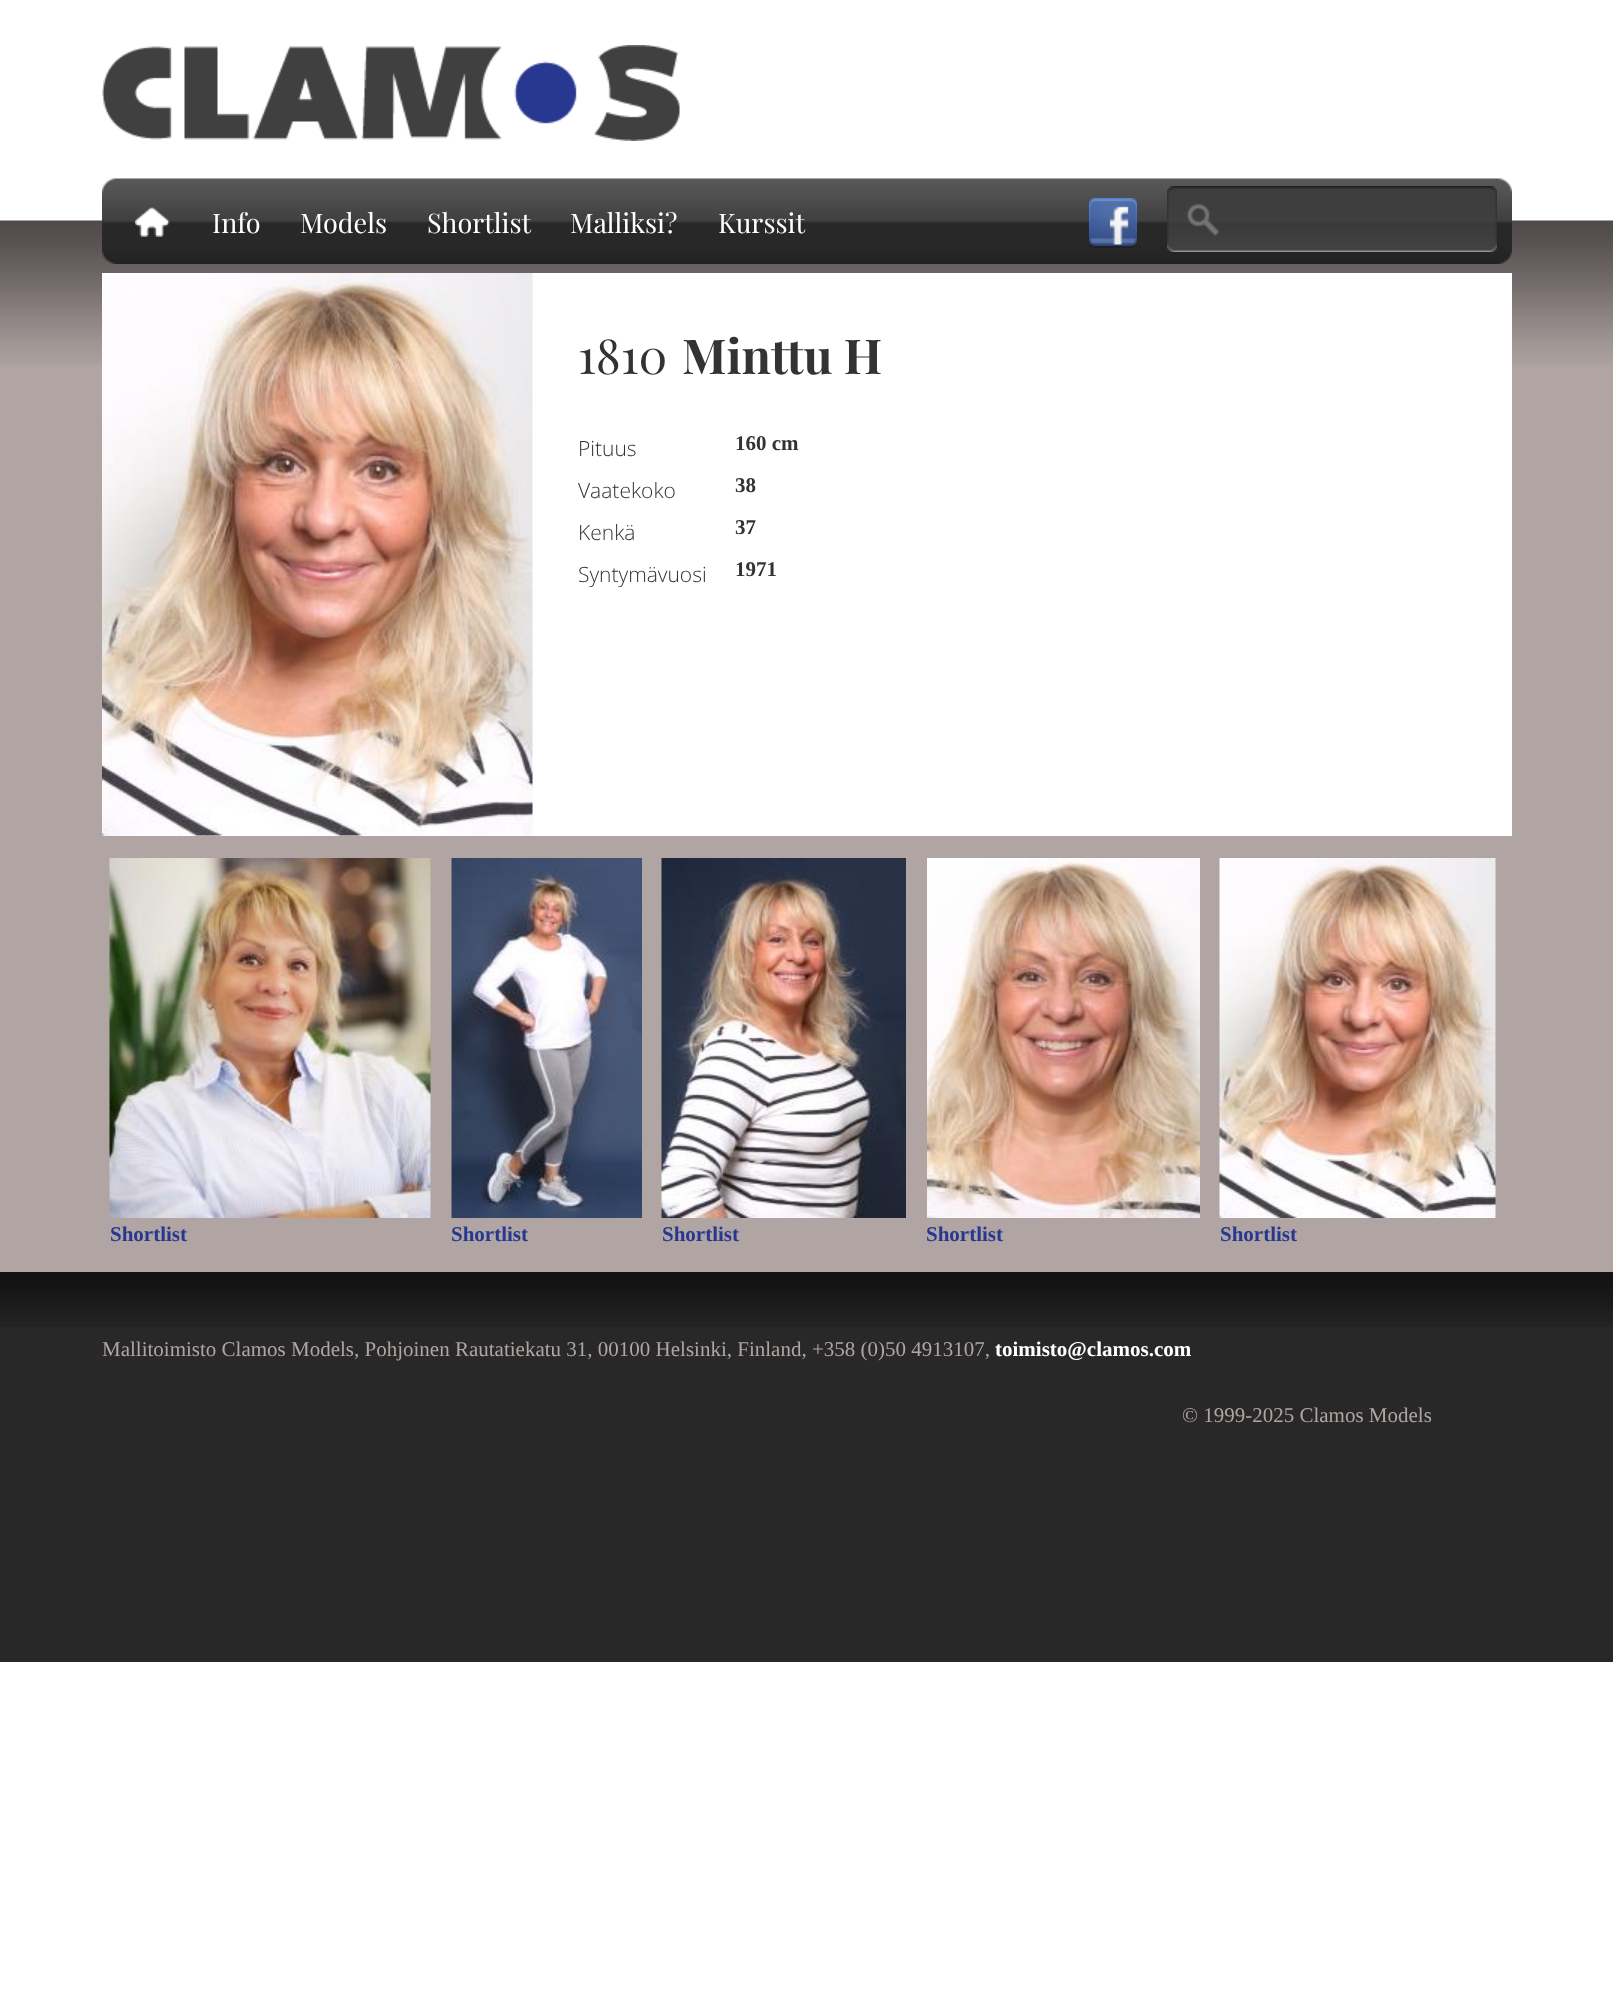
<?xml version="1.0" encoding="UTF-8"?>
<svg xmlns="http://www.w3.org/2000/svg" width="1613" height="2007">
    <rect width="100%" height="100%" fill="#FFFFFF"/>
    <rect x="0" y="365" width="1613" height="907" fill="#B0A5A3"/>
    <image x="102" y="45" width="578" height="96" href="img_01.png"/>
    <image x="0" y="220" width="1613" height="145" href="img_06.png"/>
    <image x="102" y="178" width="1410" height="86" href="img_02.png"/>
    <image x="135" y="207" width="35" height="30" href="img_03.png"/>
    <text x="212" y="233" font-family="Playfair Display" font-size="27" fill="#FFFFFF">Info</text>
    <text x="300" y="233" font-family="Playfair Display" font-size="27" fill="#FFFFFF">Models</text>
    <text x="427" y="233" font-family="Playfair Display" font-size="27" fill="#FFFFFF">Shortlist</text>
    <text x="570" y="233" font-family="Playfair Display" font-size="27" fill="#FFFFFF">Malliksi?</text>
    <text x="718" y="233" font-family="Playfair Display" font-size="27" fill="#FFFFFF">Kurssit</text>
    <image x="1089" y="198" width="48" height="50" href="img_04.png"/>
    <image x="1167" y="186" width="330" height="66" href="img_05.png"/>
    <rect x="102" y="273" width="1410" height="563" fill="#FFFFFF"/>
    <image x="102" y="273" width="431" height="563" href="img_07.png"/>
    <text x="578" y="374" font-family="Playfair Display" font-size="48" fill="#333333">1810</text>
    <text x="682" y="374" font-family="Playfair Display" font-size="48" font-weight="700" fill="#333333">Minttu H</text>
    <text x="578" y="456" font-family="Open Sans" font-size="21" font-weight="300" fill="#333333">Pituus</text>
    <text x="735" y="450" font-family="Liberation Serif" font-size="21" font-weight="700" fill="#333333">160 cm</text>
    <text x="578" y="498" font-family="Open Sans" font-size="21" font-weight="300" fill="#333333">Vaatekoko</text>
    <text x="735" y="492" font-family="Liberation Serif" font-size="21" font-weight="700" fill="#333333">38</text>
    <text x="578" y="540" font-family="Open Sans" font-size="21" font-weight="300" fill="#333333">Kenkä</text>
    <text x="735" y="534" font-family="Liberation Serif" font-size="21" font-weight="700" fill="#333333">37</text>
    <text x="578" y="582" font-family="Open Sans" font-size="21" font-weight="300" fill="#333333">Syntymävuosi</text>
    <text x="735" y="576" font-family="Liberation Serif" font-size="21" font-weight="700" fill="#333333">1971</text>
    <image x="109" y="858" width="322" height="360" href="img_08.png"/>
    <text x="110" y="1241" font-family="Liberation Serif" font-size="21" font-weight="700" fill="#283891">Shortlist</text>
    <image x="451" y="858" width="191" height="360" href="img_09.png"/>
    <text x="451" y="1241" font-family="Liberation Serif" font-size="21" font-weight="700" fill="#283891">Shortlist</text>
    <image x="661" y="858" width="245" height="360" href="img_10.png"/>
    <text x="662" y="1241" font-family="Liberation Serif" font-size="21" font-weight="700" fill="#283891">Shortlist</text>
    <image x="927" y="858" width="273" height="360" href="img_11.png"/>
    <text x="926" y="1241" font-family="Liberation Serif" font-size="21" font-weight="700" fill="#283891">Shortlist</text>
    <image x="1219" y="858" width="277" height="360" href="img_12.png"/>
    <text x="1220" y="1241" font-family="Liberation Serif" font-size="21" font-weight="700" fill="#283891">Shortlist</text>
    <rect x="0" y="1327" width="1613" height="335" fill="#282828"/>
    <image x="0" y="1272" width="1613" height="55" href="img_13.png"/>
    <text x="102" y="1356" font-family="Liberation Serif" font-size="21" fill="#B0A5A3">Mallitoimisto Clamos Models, Pohjoinen Rautatiekatu 31, 00100 Helsinki, Finland, +358 (0)50 4913107,</text>
    <text x="995" y="1356" font-family="Liberation Serif" font-size="21" font-weight="700" fill="#FFFFFF">toimisto@clamos.com</text>
    <text x="1182" y="1422" font-family="Liberation Serif" font-size="21" fill="#B0A5A3">© 1999-2025 Clamos Models</text>
</svg>
